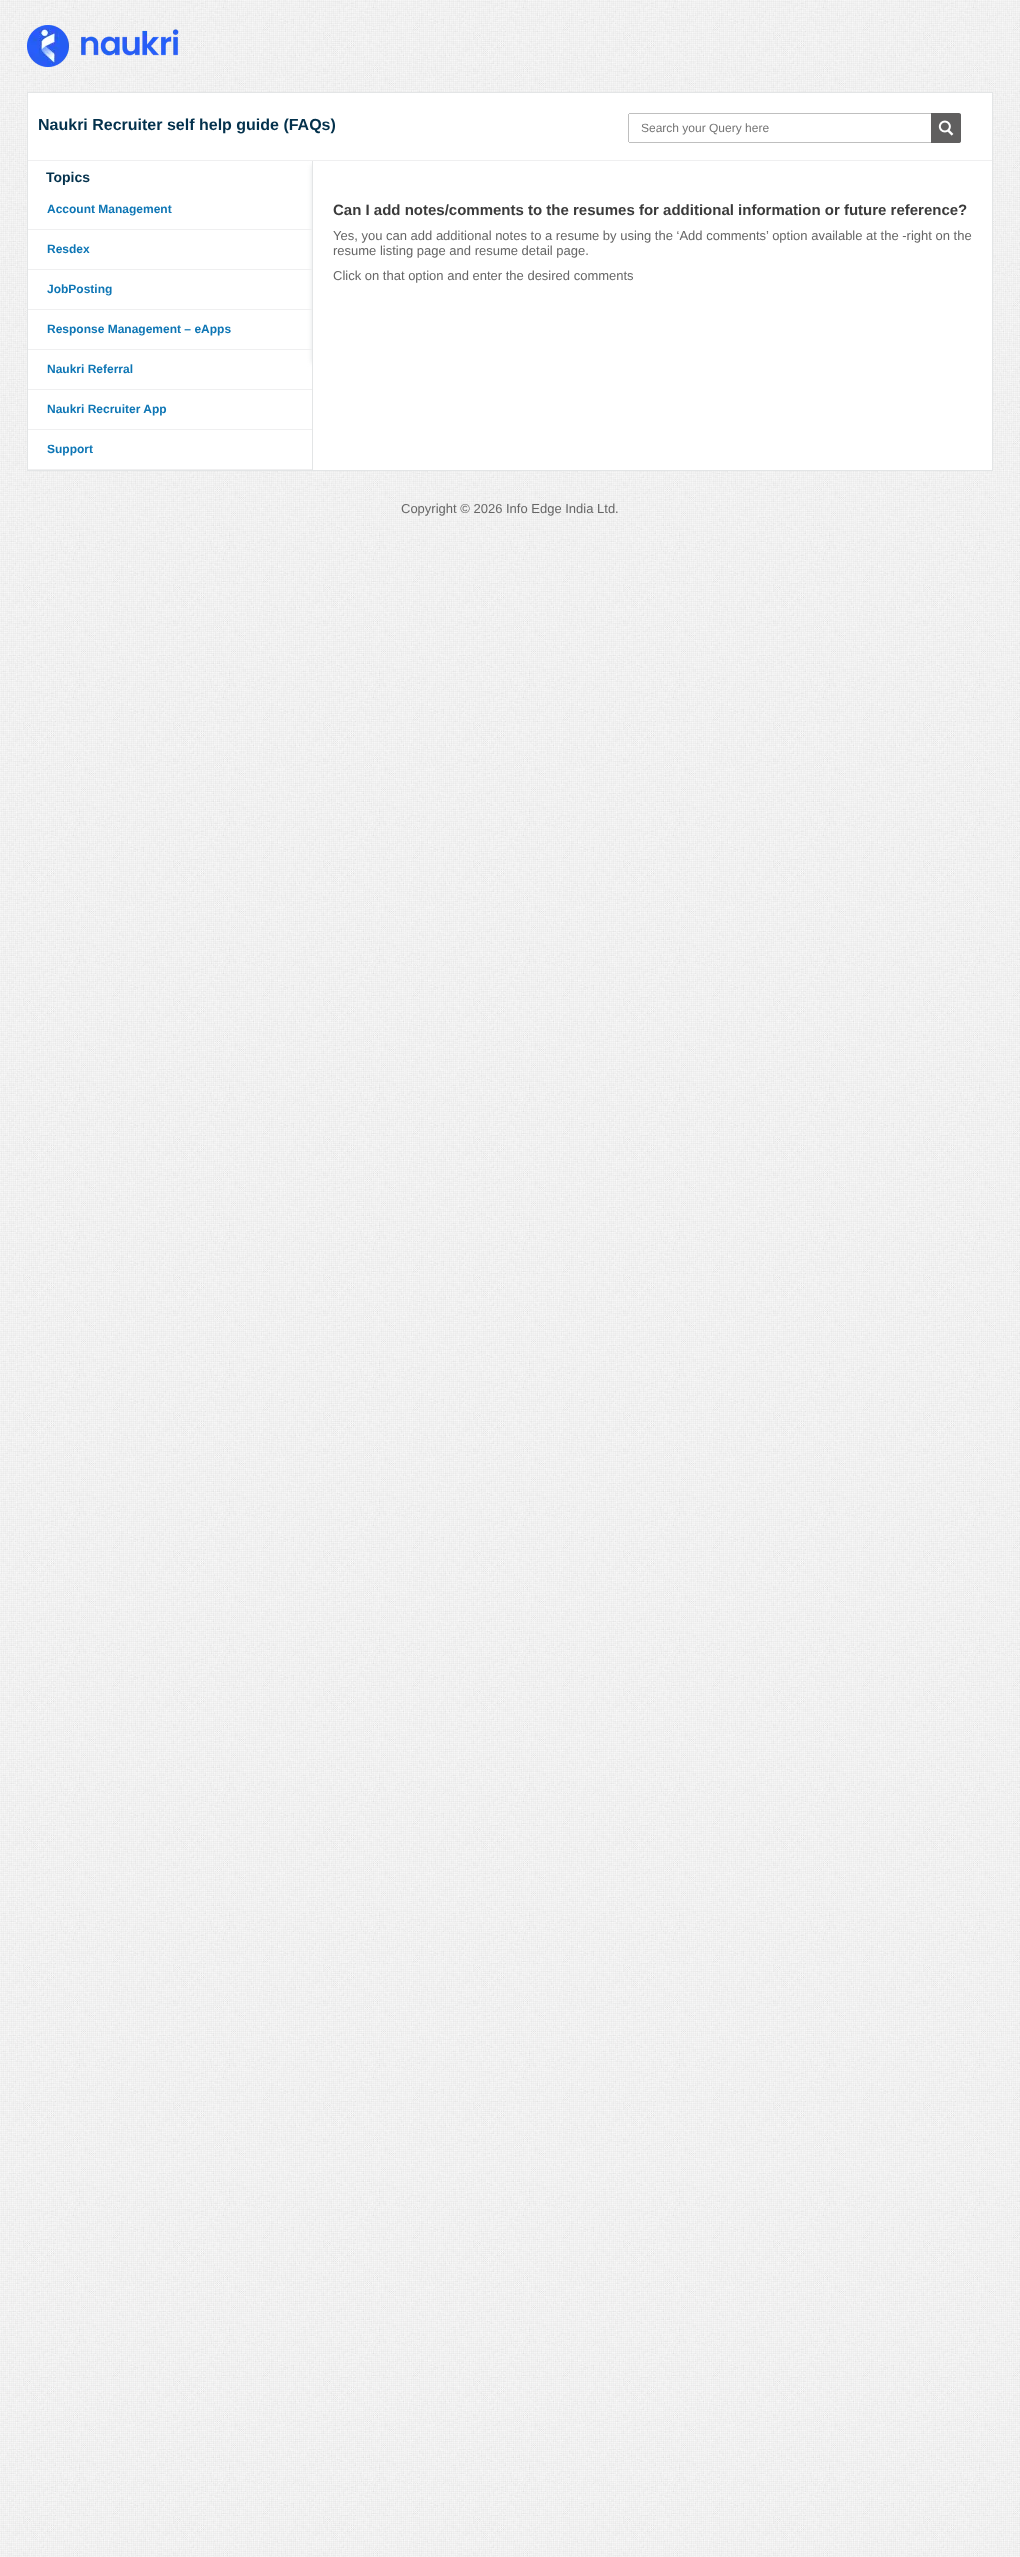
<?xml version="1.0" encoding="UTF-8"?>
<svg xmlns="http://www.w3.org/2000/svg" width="1020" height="2557">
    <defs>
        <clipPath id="clip1"><rect x="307" y="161" width="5" height="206"/></clipPath>
        <filter id="blur1" x="-50%" y="-200%" width="200%" height="500%"><feGaussianBlur stdDeviation="2.5"/></filter>
    </defs>
    <rect width="100%" height="100%" fill="#FFFFFF"/>
    <image x="0" y="0" width="1020" height="2557" href="img_01.png"/>
    <image x="27" y="25" width="152" height="42" href="img_02.png"/>
    <rect x="27.5" y="92.5" width="965" height="378" fill="#FFFFFF" stroke="#E3E5E6"/>
    <rect x="28" y="160" width="964" height="1" fill="#EFEFF0"/>
    <text x="38" y="130" font-family="Liberation Sans" font-size="16" font-weight="700" fill="#03314C">Naukri Recruiter self help guide (FAQs)</text>
    <rect x="629" y="113" width="302" height="1" fill="#BFBFBF"/>
    <rect x="629" y="142" width="302" height="1" fill="#BFBFBF"/>
    <rect x="628" y="114" width="1" height="28" fill="#BFBFBF"/>
    <text x="641" y="132" font-family="Liberation Sans" font-size="12" fill="#757575">Search your Query here</text>
    <image x="931" y="113" width="30" height="30" href="img_03.png"/>
    <g clip-path="url(#clip1)">
        <rect x="312" y="165" width="666" height="198" fill="#E3E5E6" filter="url(#blur1)"/>
    </g>
    <rect x="312" y="161" width="1" height="309" fill="#E3E5E6"/>
    <text x="46" y="182" font-family="Liberation Sans" font-size="14" font-weight="700" fill="#03314C">Topics</text>
    <rect x="28" y="229" width="284" height="1" fill="#EFEFF0"/>
    <text x="47" y="213" font-family="Liberation Sans" font-size="12" font-weight="700" fill="#0E76B5">Account Management</text>
    <rect x="28" y="269" width="284" height="1" fill="#EFEFF0"/>
    <text x="47" y="253" font-family="Liberation Sans" font-size="12" font-weight="700" fill="#0E76B5">Resdex</text>
    <rect x="28" y="309" width="284" height="1" fill="#EFEFF0"/>
    <text x="47" y="293" font-family="Liberation Sans" font-size="12" font-weight="700" fill="#0E76B5">JobPosting</text>
    <rect x="28" y="349" width="284" height="1" fill="#EFEFF0"/>
    <text x="47" y="333" font-family="Liberation Sans" font-size="12" font-weight="700" fill="#0E76B5">Response Management – eApps</text>
    <rect x="28" y="389" width="284" height="1" fill="#EFEFF0"/>
    <text x="47" y="373" font-family="Liberation Sans" font-size="12" font-weight="700" fill="#0E76B5">Naukri Referral</text>
    <rect x="28" y="429" width="284" height="1" fill="#EFEFF0"/>
    <text x="47" y="413" font-family="Liberation Sans" font-size="12" font-weight="700" fill="#0E76B5">Naukri Recruiter App</text>
    <rect x="28" y="469" width="284" height="1" fill="#EFEFF0"/>
    <text x="47" y="453" font-family="Liberation Sans" font-size="12" font-weight="700" fill="#0E76B5">Support</text>
    <text x="333" y="215" font-family="Liberation Sans" font-size="15" font-weight="700" fill="#3B3B3B">Can I add notes/comments to the resumes for additional information or future reference?</text>
    <text font-family="Liberation Sans" font-size="13" fill="#666666">
        <tspan x="333" y="240">Yes, you can add additional notes to a resume by using the ‘Add comments’ option available at the -right on the</tspan>
        <tspan x="333" y="255">resume listing page and resume detail page.</tspan>
        <tspan x="333" y="280">Click on that option and enter the desired comments</tspan>
    </text>
    <text x="401" y="513" font-family="Liberation Sans" font-size="13" fill="#666666">Copyright © 2026 Info Edge India Ltd.</text>
</svg>
